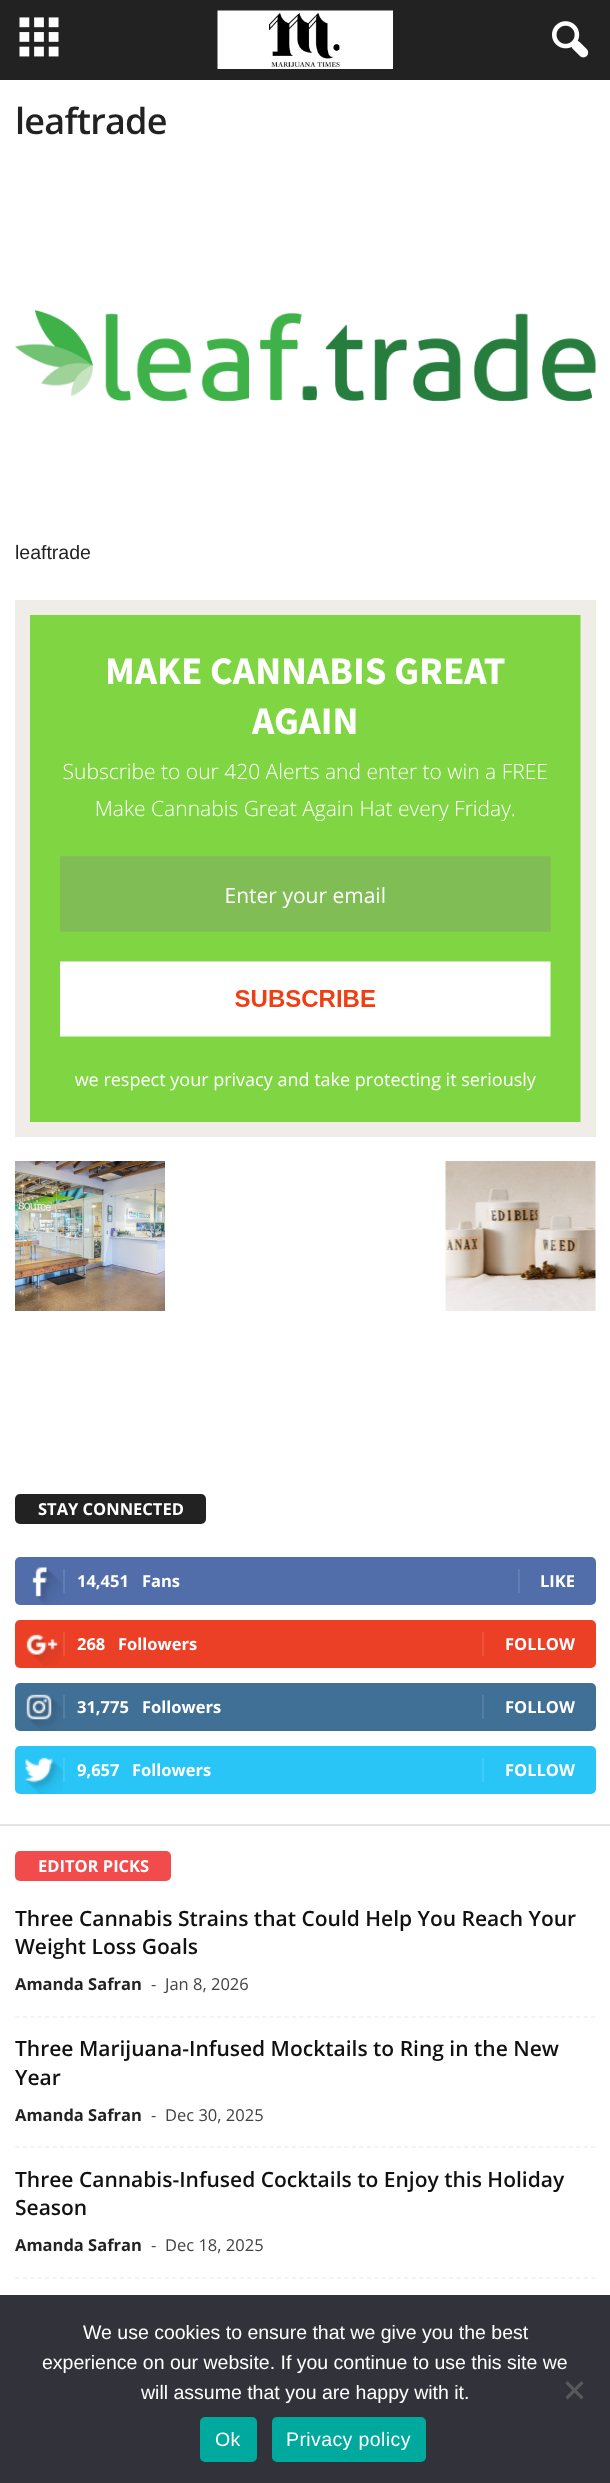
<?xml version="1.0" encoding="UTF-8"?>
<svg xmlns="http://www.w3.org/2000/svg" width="610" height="2483">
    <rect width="100%" height="100%" fill="#FFFFFF"/>
    <rect x="0" y="0" width="610" height="80" fill="#222222"/>
    <image x="19" y="17" width="40" height="40" href="img_01.png"/>
    <image x="217" y="10" width="176" height="59" href="img_02.png"/>
    <image x="552" y="21" width="37" height="37" href="img_03.png"/>
    <text x="15" y="134" font-family="Open Sans" font-size="36" font-weight="600" letter-spacing="-0.75" fill="#222222">leaftrade</text>
    <image x="15" y="310" width="581" height="91" href="img_04.png"/>
    <text x="15" y="559" font-family="Liberation Sans" font-size="19.5" fill="#222222">leaftrade</text>
    <image x="15" y="600" width="581" height="537" href="img_05.png"/>
    <image x="15" y="1161" width="150" height="150" href="img_06.png"/>
    <image x="445" y="1161" width="151" height="150" href="img_07.png"/>
    <rect x="15" y="1494" width="191" height="30" rx="5" fill="#222222"/>
    <text x="38" y="1515" font-family="Open Sans" font-size="16.5" font-weight="700" fill="#FFFFFF">STAY CONNECTED</text>
    <rect x="15" y="1557" width="581" height="48" rx="5" fill="#516EAB"/>
    <image x="32" y="1567" width="31" height="38" href="img_08.png"/>
    <rect x="63" y="1569" width="2" height="24" fill="#627DB3"/>
    <text x="77" y="1587" font-family="Open Sans" font-size="16.5" font-weight="700" fill="#FFFFFF">14,451</text>
    <text x="142" y="1587" font-family="Open Sans" font-size="16.5" font-weight="700" fill="#FFFFFF">Fans</text>
    <rect x="518" y="1569" width="2" height="24" fill="#627DB3"/>
    <text x="540" y="1587" font-family="Open Sans" font-size="16.5" font-weight="700" fill="#FFFFFF">LIKE</text>
    <rect x="15" y="1620" width="581" height="48" rx="5" fill="#EB4026"/>
    <image x="26" y="1634" width="37" height="32" href="img_09.png"/>
    <rect x="63" y="1632" width="2" height="24" fill="#ED533C"/>
    <text x="77" y="1650" font-family="Open Sans" font-size="16.5" font-weight="700" fill="#FFFFFF">268</text>
    <text x="118" y="1650" font-family="Open Sans" font-size="16.5" font-weight="700" fill="#FFFFFF">Followers</text>
    <rect x="482" y="1632" width="2" height="24" fill="#ED533C"/>
    <text x="505" y="1650" font-family="Open Sans" font-size="16.5" font-weight="700" fill="#FFFFFF">FOLLOW</text>
    <rect x="15" y="1683" width="581" height="48" rx="5" fill="#417096"/>
    <image x="26" y="1694" width="37" height="37" href="img_10.png"/>
    <rect x="63" y="1695" width="2" height="24" fill="#547EA1"/>
    <text x="77" y="1713" font-family="Open Sans" font-size="16.5" font-weight="700" fill="#FFFFFF">31,775</text>
    <text x="142" y="1713" font-family="Open Sans" font-size="16.5" font-weight="700" fill="#FFFFFF">Followers</text>
    <rect x="482" y="1695" width="2" height="24" fill="#547EA1"/>
    <text x="505" y="1713" font-family="Open Sans" font-size="16.5" font-weight="700" fill="#FFFFFF">FOLLOW</text>
    <rect x="15" y="1746" width="581" height="48" rx="5" fill="#29C5F6"/>
    <image x="24" y="1757" width="39" height="37" href="img_11.png"/>
    <rect x="63" y="1758" width="2" height="24" fill="#3ECBF7"/>
    <text x="77" y="1776" font-family="Open Sans" font-size="16.5" font-weight="700" fill="#FFFFFF">9,657</text>
    <text x="132" y="1776" font-family="Open Sans" font-size="16.5" font-weight="700" fill="#FFFFFF">Followers</text>
    <rect x="482" y="1758" width="2" height="24" fill="#3ECBF7"/>
    <text x="505" y="1776" font-family="Open Sans" font-size="16.5" font-weight="700" fill="#FFFFFF">FOLLOW</text>
    <rect x="0" y="1824" width="610" height="2" fill="#E6E6E6"/>
    <rect x="15" y="1851" width="156" height="30" rx="5" fill="#F24B4B"/>
    <text x="38" y="1872" font-family="Open Sans" font-size="16.5" font-weight="700" fill="#FFFFFF">EDITOR PICKS</text>
    <path d="M 15 2017 H 595.5" fill="none" stroke="#F1F1F1" stroke-width="1.5" stroke-dasharray="4.5 2.98"/>
    <text font-family="Open Sans" font-size="21" font-weight="600" fill="#111111">
        <tspan x="15" y="1926">Three Cannabis Strains that Could Help You Reach Your</tspan>
        <tspan x="15" y="1954">Weight Loss Goals</tspan>
    </text>
    <text x="15" y="1990" font-family="Open Sans" font-size="16.5" font-weight="700" fill="#222222">Amanda Safran</text>
    <text x="151" y="1990" font-family="Open Sans" font-size="16.5" fill="#444444">-</text>
    <text x="165" y="1990" font-family="Open Sans" font-size="16.5" fill="#444444">Jan 8, 2026</text>
    <path d="M 15 2147 H 595.5" fill="none" stroke="#F1F1F1" stroke-width="1.5" stroke-dasharray="4.5 2.98"/>
    <text font-family="Open Sans" font-size="21" font-weight="600" fill="#111111">
        <tspan x="15" y="2056">Three Marijuana-Infused Mocktails to Ring in the New</tspan>
        <tspan x="15" y="2085">Year</tspan>
    </text>
    <text x="15" y="2121" font-family="Open Sans" font-size="16.5" font-weight="700" fill="#222222">Amanda Safran</text>
    <text x="151" y="2121" font-family="Open Sans" font-size="16.5" fill="#444444">-</text>
    <text x="165" y="2121" font-family="Open Sans" font-size="16.5" fill="#444444">Dec 30, 2025</text>
    <path d="M 15 2278 H 595.5" fill="none" stroke="#F1F1F1" stroke-width="1.5" stroke-dasharray="4.5 2.98"/>
    <text font-family="Open Sans" font-size="21" font-weight="600" fill="#111111">
        <tspan x="15" y="2187">Three Cannabis-Infused Cocktails to Enjoy this Holiday</tspan>
        <tspan x="15" y="2215">Season</tspan>
    </text>
    <text x="15" y="2251" font-family="Open Sans" font-size="16.5" font-weight="700" fill="#222222">Amanda Safran</text>
    <text x="151" y="2251" font-family="Open Sans" font-size="16.5" fill="#444444">-</text>
    <text x="165" y="2251" font-family="Open Sans" font-size="16.5" fill="#444444">Dec 18, 2025</text>
    <rect x="0" y="2295" width="610" height="188" fill="#32323A"/>
    <text x="83" y="2339" font-family="Liberation Sans" font-size="19.5" fill="#FFFFFF">We use cookies to ensure that we give you the best</text>
    <text x="42" y="2369" font-family="Liberation Sans" font-size="19.5" fill="#FFFFFF">experience on our website. If you continue to use this site we</text>
    <text x="141" y="2399" font-family="Liberation Sans" font-size="19.5" fill="#FFFFFF">will assume that you are happy with it.</text>
    <path d="M 581.5 2381 L 583.5 2383.5 L 567.5 2399.5 L 565.5 2397 Z" fill="#59595D"/>
    <path d="M 565.5 2383.5 L 567.5 2381 L 583.5 2397 L 581.5 2399.5 Z" fill="#59595D"/>
    <rect x="200" y="2417" width="57" height="45" rx="5" fill="#00A99D"/>
    <text x="215" y="2446" font-family="Liberation Sans" font-size="19.5" letter-spacing="0.4" fill="#FFFFFF">Ok</text>
    <rect x="272" y="2417" width="154" height="45" rx="5" fill="#00A99D"/>
    <text x="286" y="2446" font-family="Liberation Sans" font-size="19.5" letter-spacing="0.4" fill="#FFFFFF">Privacy policy</text>
</svg>
